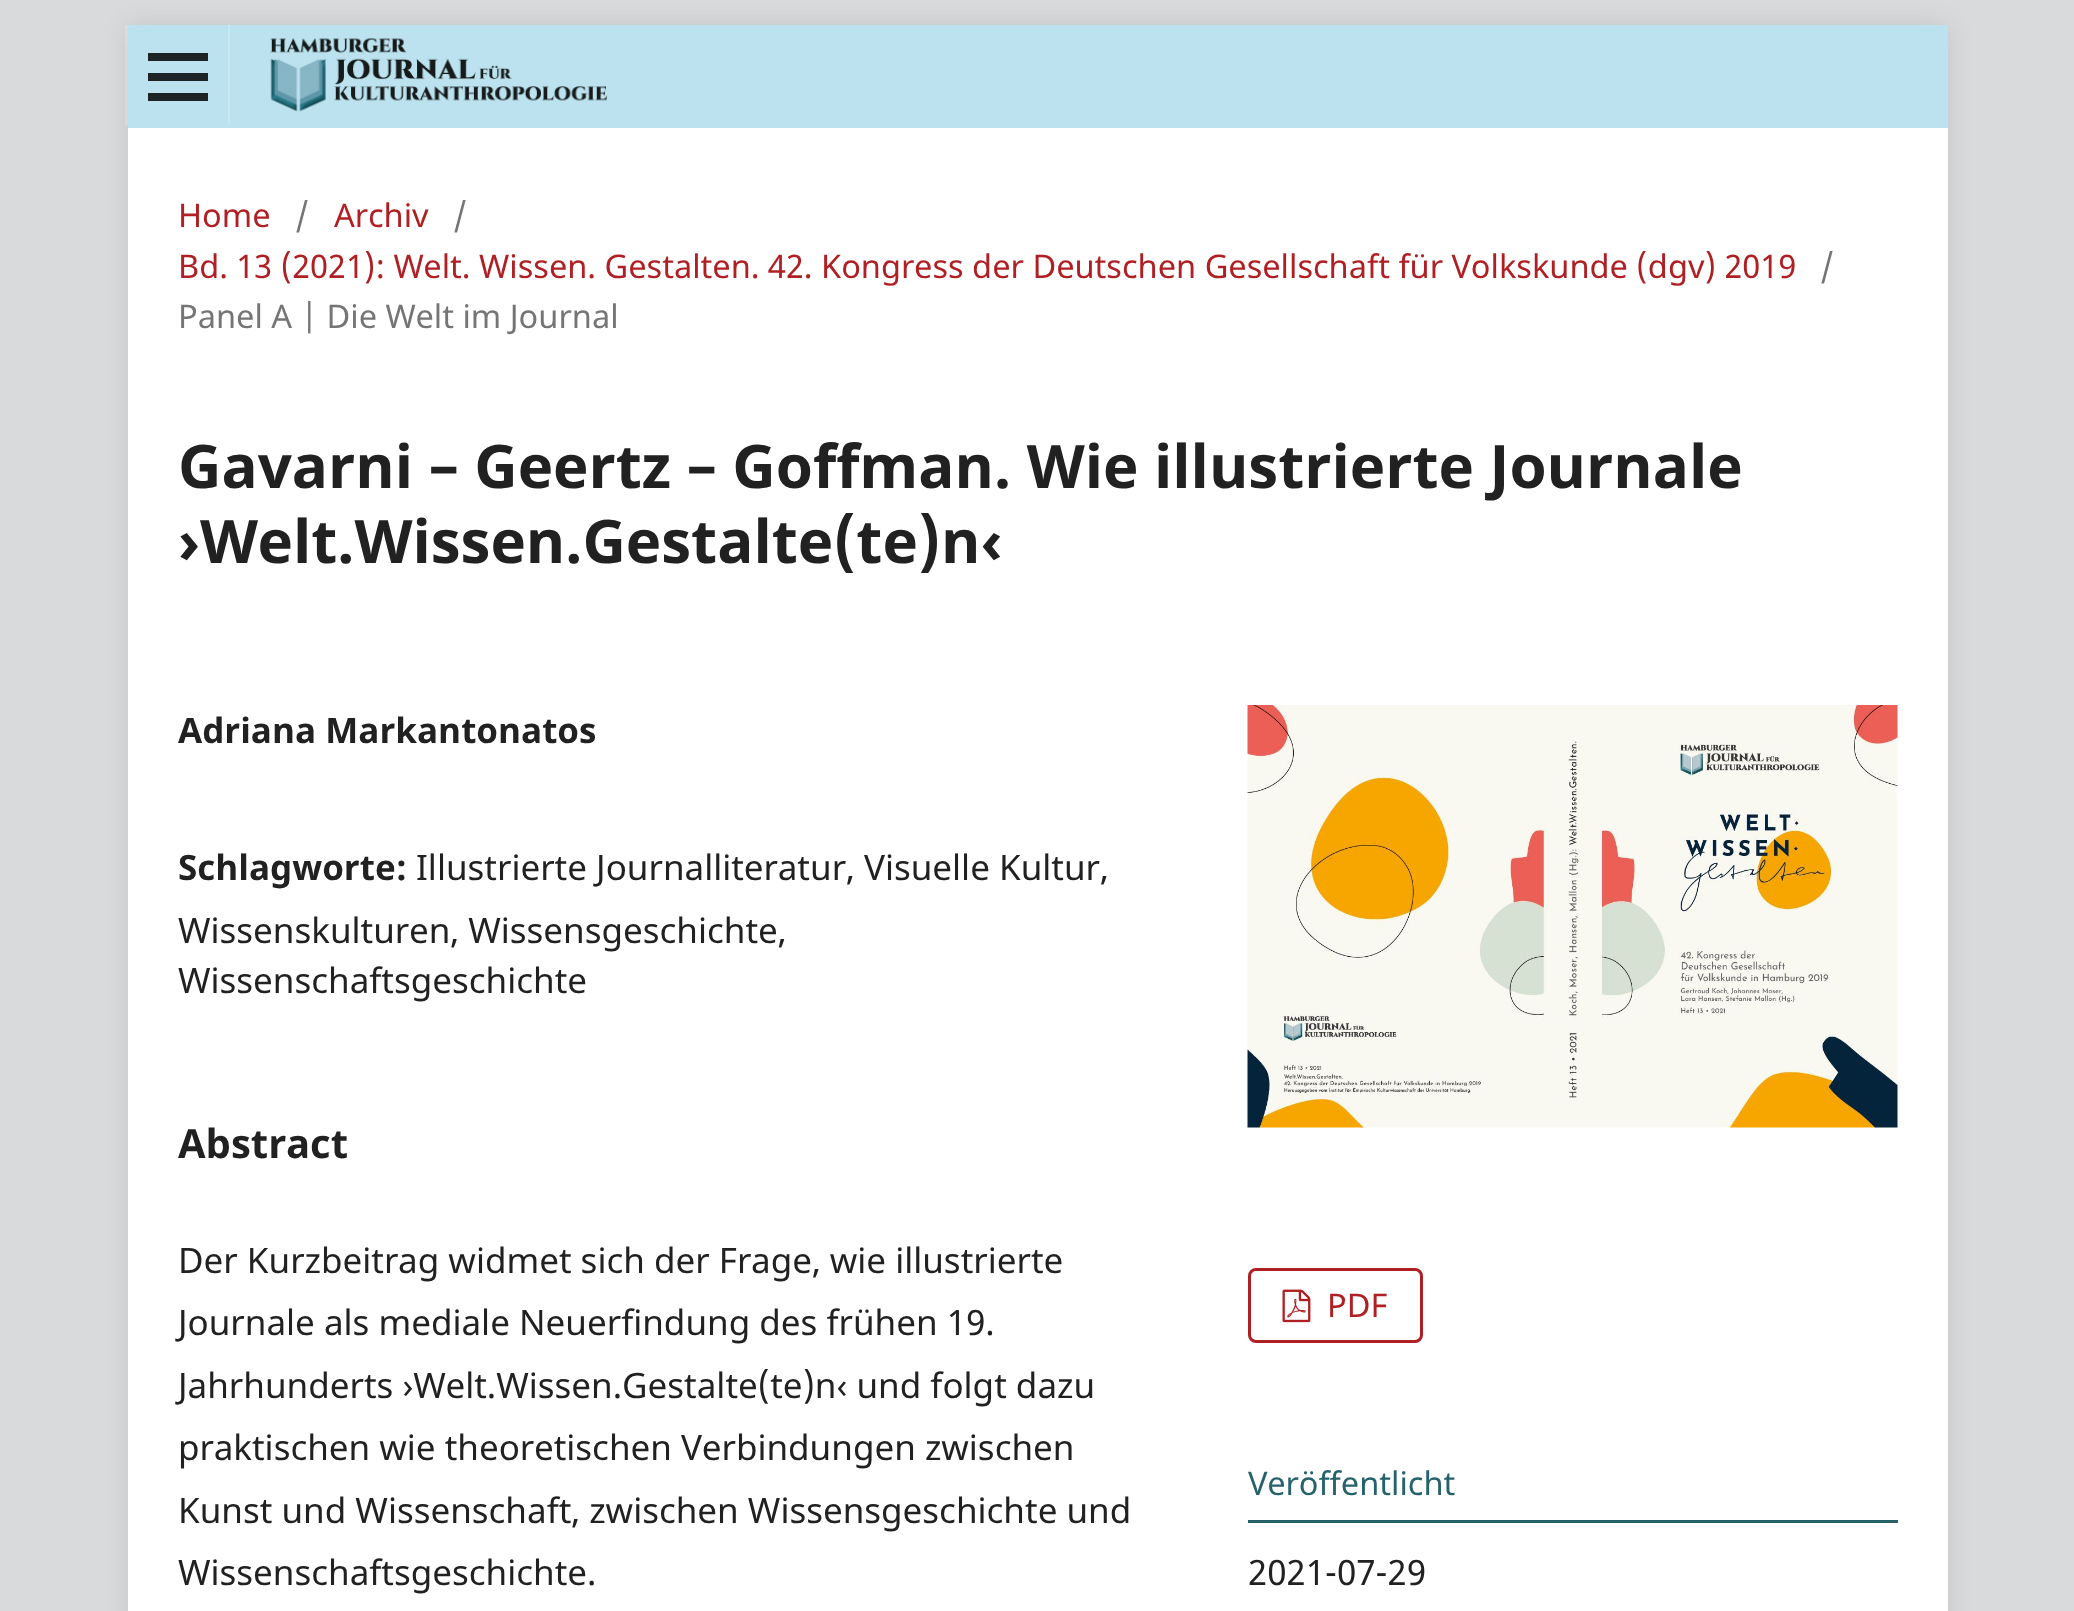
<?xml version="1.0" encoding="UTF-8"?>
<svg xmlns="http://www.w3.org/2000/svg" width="2074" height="1611">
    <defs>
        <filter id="blur1" x="-50%" y="-200%" width="200%" height="500%"><feGaussianBlur stdDeviation="12.5"/></filter>
    </defs>
    <rect width="100%" height="100%" fill="#D9DADB"/>
    <rect x="128" y="25" width="1820" height="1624" fill="#000000" fill-opacity="0.1" filter="url(#blur1)"/>
    <rect x="128" y="25" width="1820" height="103" fill="#BBE2EE"/>
    <rect x="125" y="25" width="3" height="100" fill="#FFFFFF" fill-opacity="0.2"/>
    <rect x="228" y="25" width="2" height="100" fill="#C9E8F1"/>
    <rect x="148" y="93" width="60" height="8" fill="#1E2426"/>
    <rect x="148" y="53" width="60" height="8" fill="#1E2426"/>
    <rect x="148" y="73" width="60" height="8" fill="#1E2426"/>
    <image x="270" y="38" width="338" height="74" href="img_01.png"/>
    <rect x="128" y="128" width="1820" height="1483" fill="#FFFFFF"/>
    <text x="178" y="227" font-family="Noto Sans" font-size="32.55" fill="#B01F23">Home</text>
    <text x="295" y="227" font-family="Noto Sans" font-size="32.55" fill="#757575">/</text>
    <text x="334" y="227" font-family="Noto Sans" font-size="32.55" fill="#B01F23">Archiv</text>
    <text x="453" y="227" font-family="Noto Sans" font-size="32.55" fill="#757575">/</text>
    <text x="178" y="278" font-family="Noto Sans" font-size="32.55" fill="#B01F23">Bd. 13 (2021): Welt. Wissen. Gestalten. 42. Kongress der Deutschen Gesellschaft für Volkskunde (dgv) 2019</text>
    <text x="1820" y="278" font-family="Noto Sans" font-size="32.55" fill="#757575">/</text>
    <text x="178" y="328" font-family="Noto Sans" font-size="32.55" fill="#757575">Panel A | Die Welt im Journal</text>
    <text font-family="Noto Sans" font-size="60" font-weight="700" fill="#212121">
        <tspan x="178" y="488">Gavarni – Geertz – Goffman. Wie illustrierte Journale</tspan>
        <tspan x="178" y="563">›Welt.Wissen.Gestalte(te)n‹</tspan>
    </text>
    <text x="178" y="743" font-family="Noto Sans" font-size="35" font-weight="700" fill="#212121">Adriana Markantonatos</text>
    <text x="178" y="880" font-family="Noto Sans" font-size="35" font-weight="700" fill="#212121">Schlagworte:</text>
    <text x="416" y="880" font-family="Noto Sans" font-size="35" fill="#212121">Illustrierte Journalliteratur, Visuelle Kultur,</text>
    <text font-family="Noto Sans" font-size="35" fill="#212121">
        <tspan x="178" y="943">Wissenskulturen, Wissensgeschichte,</tspan>
        <tspan x="178" y="993">Wissenschaftsgeschichte</tspan>
    </text>
    <text x="178" y="1158" font-family="Noto Sans" font-size="40" font-weight="700" fill="#212121">Abstract</text>
    <text font-family="Noto Sans" font-size="35" fill="#212121">
        <tspan x="178" y="1273">Der Kurzbeitrag widmet sich der Frage, wie illustrierte</tspan>
        <tspan x="178" y="1335">Journale als mediale Neuerfindung des frühen 19.</tspan>
        <tspan x="178" y="1398">Jahrhunderts ›Welt.Wissen.Gestalte(te)n‹ und folgt dazu</tspan>
        <tspan x="178" y="1460">praktischen wie theoretischen Verbindungen zwischen</tspan>
        <tspan x="178" y="1523">Kunst und Wissenschaft, zwischen Wissensgeschichte und</tspan>
        <tspan x="178" y="1585">Wissenschaftsgeschichte.</tspan>
    </text>
    <image x="1247" y="705" width="651" height="423" href="img_02.png"/>
    <rect x="1249.5" y="1269.5" width="172" height="72" rx="6.5" fill="none" stroke="#B01F23" stroke-width="3"/>
    <image x="1282" y="1289" width="29" height="34" href="img_03.png"/>
    <text x="1327" y="1317" font-family="Noto Sans" font-size="32.55" fill="#B01F23">PDF</text>
    <rect x="1248" y="1520" width="650" height="3" fill="#26626B"/>
    <text x="1248" y="1495" font-family="Noto Sans" font-size="32.55" fill="#26626B">Veröffentlicht</text>
    <text x="1248" y="1585" font-family="Noto Sans" font-size="35" fill="#212121">2021-07-29</text>
</svg>
